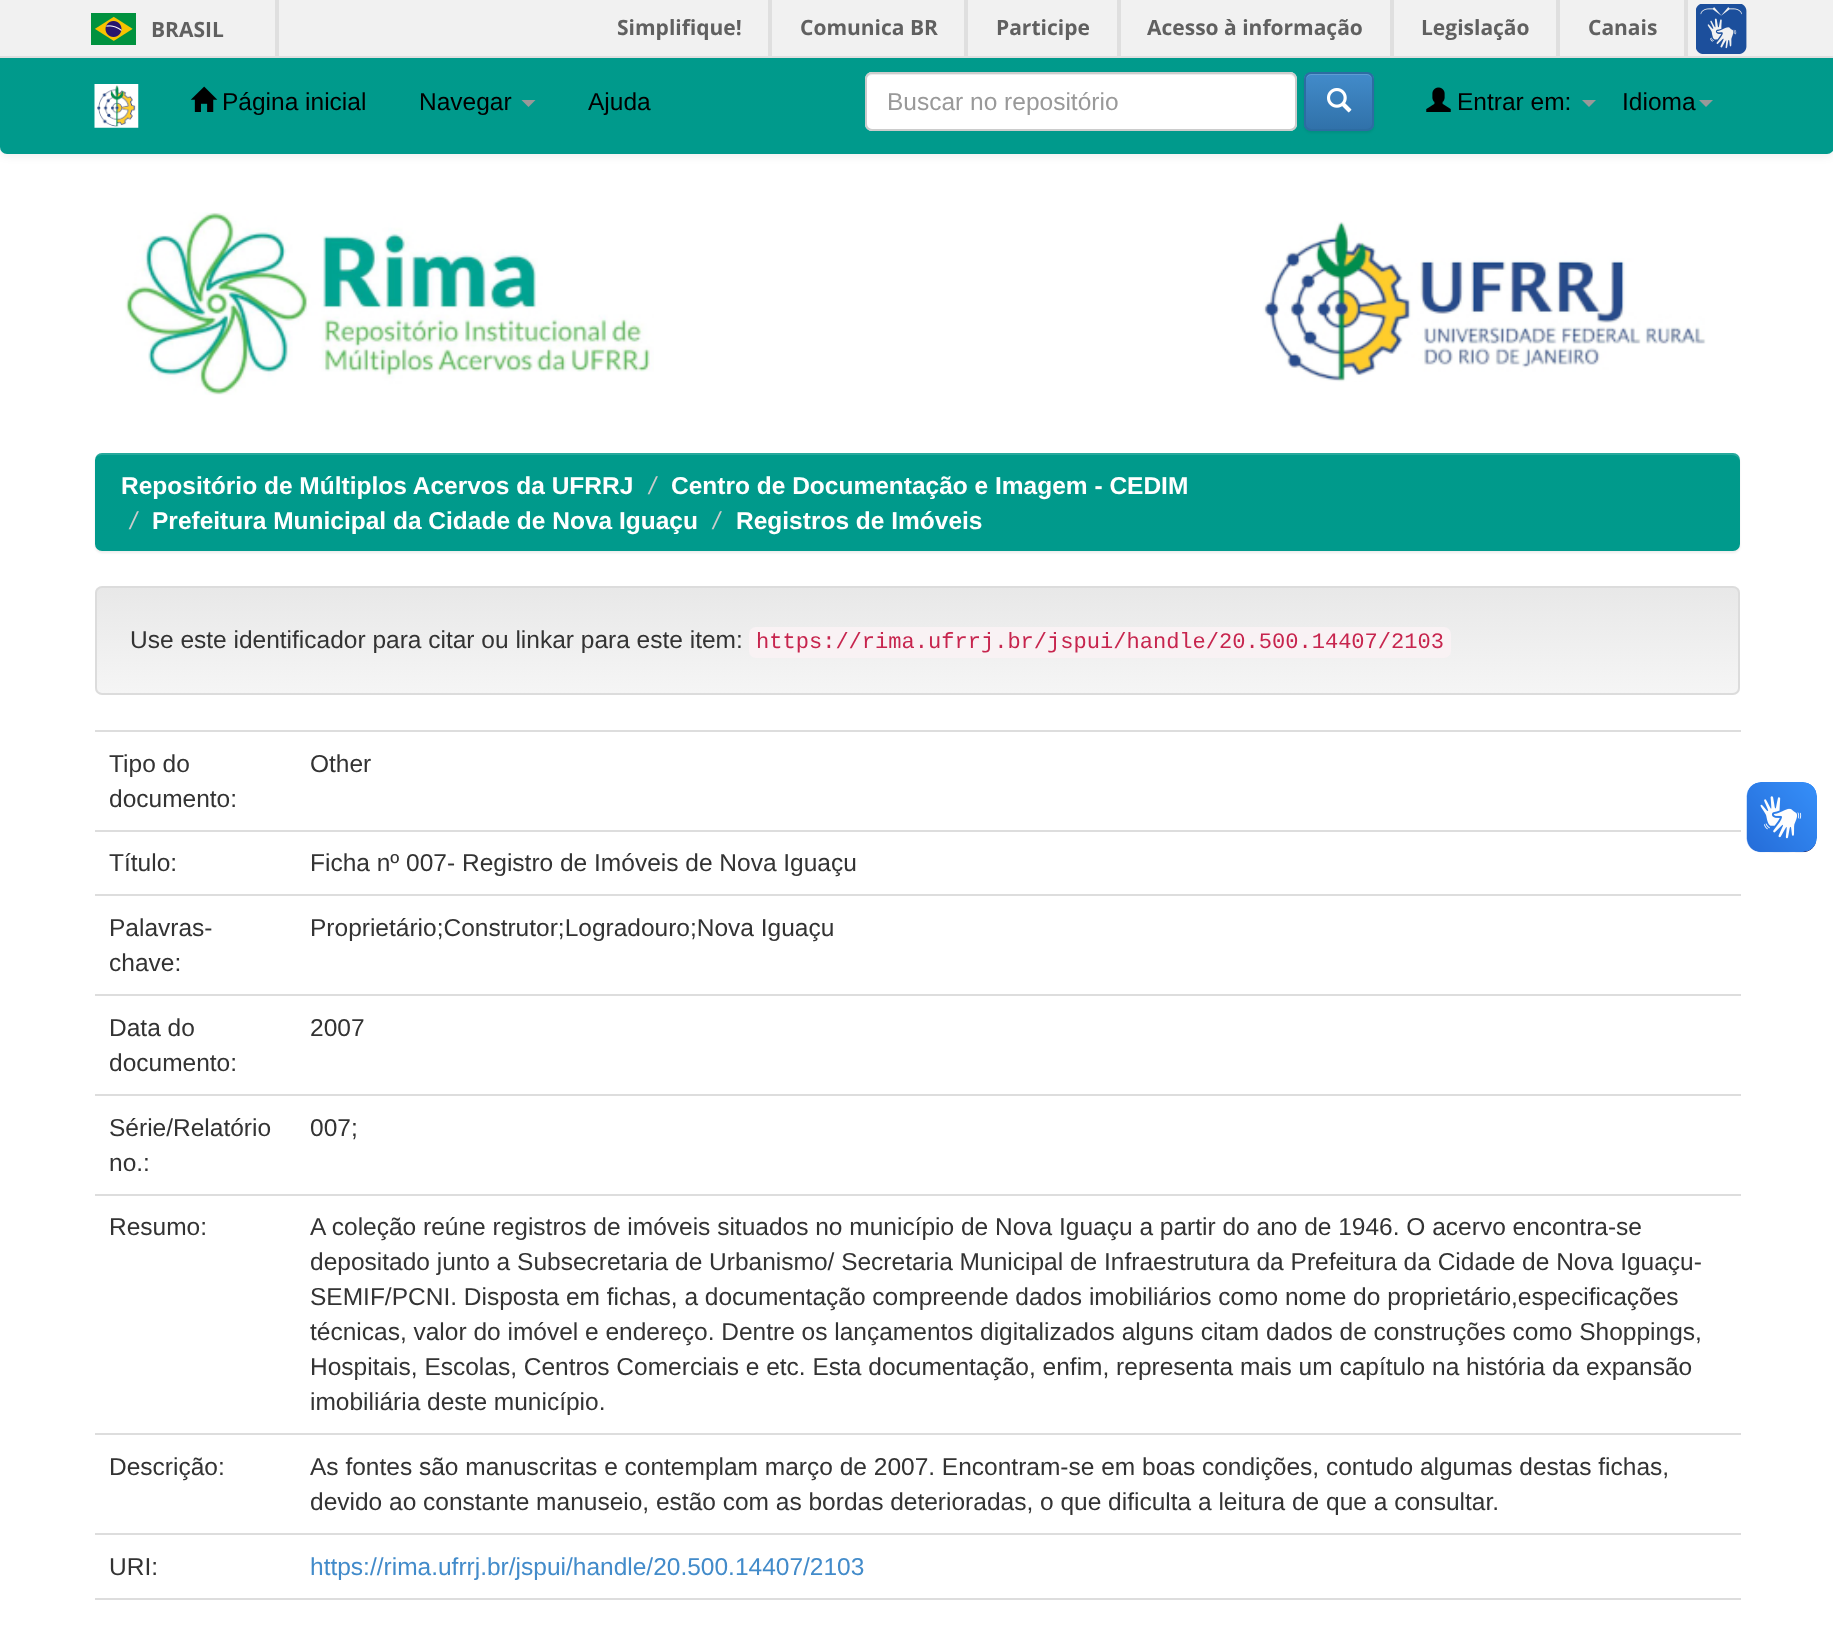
<?xml version="1.0" encoding="UTF-8"?>
<svg xmlns="http://www.w3.org/2000/svg" width="1833" height="1633">
    <defs>
        <filter id="blur1" x="-50%" y="-200%" width="200%" height="500%"><feGaussianBlur stdDeviation="4.5"/></filter>
        <linearGradient id="g1" gradientUnits="userSpaceOnUse" x1="917" y1="0" x2="917" y2="154"><stop offset="0" stop-color="#009A8B"/><stop offset="1" stop-color="#009A8C"/></linearGradient>
        <filter id="blur2" x="-50%" y="-200%" width="200%" height="500%"><feGaussianBlur stdDeviation="1"/></filter>
        <clipPath id="clip1"><rect x="1304" y="72" width="70" height="59" rx="7"/></clipPath>
        <linearGradient id="g2" gradientUnits="userSpaceOnUse" x1="1339" y1="74" x2="1339" y2="130"><stop offset="0" stop-color="#428BCA"/><stop offset="1" stop-color="#3071A9"/></linearGradient>
        <linearGradient id="g3" gradientUnits="userSpaceOnUse" x1="917" y1="453" x2="917" y2="551"><stop offset="0" stop-color="#009A8B"/><stop offset="1" stop-color="#009A8C"/></linearGradient>
        <clipPath id="clip2"><rect x="95" y="586" width="1645" height="109" rx="7"/></clipPath>
        <linearGradient id="g4" gradientUnits="userSpaceOnUse" x1="917" y1="588" x2="917" y2="693"><stop offset="0" stop-color="#E8E8E8"/><stop offset="1" stop-color="#F5F5F5"/></linearGradient>
    </defs>
    <rect width="100%" height="100%" fill="#FFFFFF"/>
    <rect x="0" y="2" width="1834" height="154" rx="7" fill="#000000" fill-opacity="0.07" filter="url(#blur1)"/>
    <rect x="0" y="0" width="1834" height="154" rx="7" fill="url(#g1)"/>
    <rect x="0" y="0" width="1833" height="56" fill="#F1F1F1"/>
    <rect x="0" y="56" width="1833" height="2" fill="#DFDFDF"/>
    <rect x="275" y="0" width="4" height="56" fill="#DFDFDF"/>
    <image x="91" y="13" width="45" height="32" href="img_01.png"/>
    <text x="151" y="37" font-family="Open Sans" font-size="21" font-weight="700" fill="#606060">BRASIL</text>
    <rect x="768" y="0" width="4" height="56" fill="#DFDFDF"/>
    <text x="617" y="35" font-family="Open Sans" font-size="21" font-weight="700" fill="#606060">Simplifique!</text>
    <rect x="964" y="0" width="4" height="56" fill="#DFDFDF"/>
    <text x="800" y="35" font-family="Open Sans" font-size="21" font-weight="700" fill="#606060">Comunica BR</text>
    <rect x="1117" y="0" width="4" height="56" fill="#DFDFDF"/>
    <text x="996" y="35" font-family="Open Sans" font-size="21" font-weight="700" fill="#606060">Participe</text>
    <rect x="1390" y="0" width="4" height="56" fill="#DFDFDF"/>
    <text x="1147" y="35" font-family="Open Sans" font-size="21" font-weight="700" fill="#606060">Acesso à informação</text>
    <rect x="1556" y="0" width="4" height="56" fill="#DFDFDF"/>
    <text x="1421" y="35" font-family="Open Sans" font-size="21" font-weight="700" fill="#606060">Legislação</text>
    <rect x="1684" y="0" width="4" height="56" fill="#DFDFDF"/>
    <text x="1588" y="35" font-family="Open Sans" font-size="21" font-weight="700" fill="#606060">Canais</text>
    <image x="1696" y="4" width="51" height="50" href="img_02.png"/>
    <image x="94" y="84" width="45" height="44" href="img_03.png"/>
    <image x="190" y="86" width="28" height="26" href="img_04.png"/>
    <text x="222" y="110" font-family="Liberation Sans" font-size="24.5" fill="#000000">Página inicial</text>
    <text x="419" y="110" font-family="Liberation Sans" font-size="24.5" fill="#000000">Navegar</text>
    <path d="M 521.5 100 H 535.5 L 528.5 107 Z" fill="#999999"/>
    <text x="588" y="110" font-family="Liberation Sans" font-size="24.5" fill="#000000">Ajuda</text>
    <rect x="865" y="72" width="432" height="59" rx="7" fill="#FFFFFF"/>
    <path d="M 872 75 H 1290 C 1293 75 1295 78 1295 80 C 1295 77 1293 74 1290 74 H 871 C 868 74 866 77 866 80 C 866 78 869 75 872 75 Z" fill="#ECECEC"/>
    <rect x="866" y="73" width="430" height="57" rx="6" fill="none" stroke="#CCCCCC" stroke-width="2"/>
    <text x="887" y="110" font-family="Liberation Sans" font-size="24.5" fill="#999999">Buscar no repositório</text>
    <rect x="1304" y="74" width="70" height="59" rx="7" fill="#000000" fill-opacity="0.07" filter="url(#blur2)"/>
    <g clip-path="url(#clip1)">
        <rect x="1304" y="74" width="70" height="56" fill="url(#g2)"/>
    </g>
    <path d="M 1311 75 H 1367 C 1370 75 1372 78 1372 80 C 1372 72 1364 74 1358 74 H 1320 C 1314 74 1306 72 1306 80 C 1306 78 1308 75 1311 75 Z" fill="#5E9CD2"/>
    <rect x="1305" y="73" width="68" height="57" rx="6" fill="none" stroke="#2D6CA2" stroke-width="2"/>
    <image x="1327" y="88" width="25" height="25" href="img_05.png"/>
    <image x="1426" y="87" width="25" height="25" href="img_06.png"/>
    <text x="1457" y="110" font-family="Liberation Sans" font-size="24.5" fill="#000000">Entrar em:</text>
    <path d="M 1582 100 H 1596 L 1589 107 Z" fill="#999999"/>
    <text x="1622" y="110" font-family="Liberation Sans" font-size="24.5" fill="#000000">Idioma</text>
    <path d="M 1699 100 H 1713 L 1706 107 Z" fill="#999999"/>
    <image x="125" y="212" width="529" height="183" href="img_07.png"/>
    <image x="1263" y="221" width="443" height="161" href="img_08.png"/>
    <rect x="95" y="455" width="1645" height="98" rx="7" fill="#000000" fill-opacity="0.07" filter="url(#blur2)"/>
    <rect x="95" y="453" width="1645" height="98" rx="7" fill="url(#g3)"/>
    <path d="M 102 455 H 1732 C 1736 455 1740 458 1740 462 V 460 C 1740 456 1737 453 1733 453 H 102 C 99 453 96 455 95 458 C 97 456 99 455 102 455 Z" fill="#FFFFFF" fill-opacity="0.15"/>
    <text x="121" y="494" font-family="Liberation Sans" font-size="24.5" font-weight="700" fill="#FFFFFF">Repositório de Múltiplos Acervos da UFRRJ</text>
    <text x="649" y="494" font-family="Liberation Sans" font-size="24.5" font-style="italic" fill="#CCCCCC">/</text>
    <text x="671" y="494" font-family="Liberation Sans" font-size="24.5" font-weight="700" fill="#FFFFFF">Centro de Documentação e Imagem - CEDIM</text>
    <text x="130" y="529" font-family="Liberation Sans" font-size="24.5" font-style="italic" fill="#CCCCCC">/</text>
    <text x="152" y="529" font-family="Liberation Sans" font-size="24.5" font-weight="700" fill="#FFFFFF">Prefeitura Municipal da Cidade de Nova Iguaçu</text>
    <text x="713" y="529" font-family="Liberation Sans" font-size="24.5" font-style="italic" fill="#CCCCCC">/</text>
    <text x="736" y="529" font-family="Liberation Sans" font-size="24.5" font-weight="700" fill="#FFFFFF">Registros de Imóveis</text>
    <g clip-path="url(#clip2)">
        <rect x="95" y="588" width="1645" height="105" fill="url(#g4)"/>
    </g>
    <rect x="96" y="587" width="1643" height="107" rx="6" fill="none" stroke="#DCDCDC" stroke-width="2"/>
    <text x="130" y="648" font-family="Liberation Sans" font-size="24.5" fill="#333333">Use este identificador para citar ou linkar para este item:</text>
    <rect x="749" y="627" width="702" height="31" rx="7" fill="#F9F2F4"/>
    <text x="756" y="648" font-family="Liberation Mono" font-size="22.05" fill="#C7254E">https://rima.ufrrj.br/jspui/handle/20.500.14407/2103</text>
    <text font-family="Liberation Sans" font-size="24.5" fill="#333333">
        <tspan x="109" y="772">Tipo do</tspan>
        <tspan x="109" y="807">documento:</tspan>
    </text>
    <rect x="95" y="730" width="1646" height="2" fill="#DDDDDD"/>
    <text x="310" y="772" font-family="Liberation Sans" font-size="24.5" fill="#333333">Other</text>
    <text x="109" y="871" font-family="Liberation Sans" font-size="24.5" fill="#333333">Título:</text>
    <rect x="95" y="830" width="1646" height="2" fill="#DDDDDD"/>
    <text x="310" y="871" font-family="Liberation Sans" font-size="24.5" fill="#333333">Ficha nº 007- Registro de Imóveis de Nova Iguaçu</text>
    <text font-family="Liberation Sans" font-size="24.5" fill="#333333">
        <tspan x="109" y="936">Palavras-</tspan>
        <tspan x="109" y="971">chave:</tspan>
    </text>
    <rect x="95" y="894" width="1646" height="2" fill="#DDDDDD"/>
    <text x="310" y="936" font-family="Liberation Sans" font-size="24.5" fill="#333333">Proprietário;Construtor;Logradouro;Nova Iguaçu</text>
    <text font-family="Liberation Sans" font-size="24.5" fill="#333333">
        <tspan x="109" y="1036">Data do</tspan>
        <tspan x="109" y="1071">documento:</tspan>
    </text>
    <rect x="95" y="994" width="1646" height="2" fill="#DDDDDD"/>
    <text x="310" y="1036" font-family="Liberation Sans" font-size="24.5" fill="#333333">2007</text>
    <text font-family="Liberation Sans" font-size="24.5" fill="#333333">
        <tspan x="109" y="1136">Série/Relatório</tspan>
        <tspan x="109" y="1171">no.:</tspan>
    </text>
    <rect x="95" y="1094" width="1646" height="2" fill="#DDDDDD"/>
    <text x="310" y="1136" font-family="Liberation Sans" font-size="24.5" fill="#333333">007;</text>
    <text x="109" y="1235" font-family="Liberation Sans" font-size="24.5" fill="#333333">Resumo:</text>
    <rect x="95" y="1194" width="1646" height="2" fill="#DDDDDD"/>
    <text font-family="Liberation Sans" font-size="24.5" fill="#333333">
        <tspan x="310" y="1235">A coleção reúne registros de imóveis situados no município de Nova Iguaçu a partir do ano de 1946. O acervo encontra-se</tspan>
        <tspan x="310" y="1270">depositado junto a Subsecretaria de Urbanismo/ Secretaria Municipal de Infraestrutura da Prefeitura da Cidade de Nova Iguaçu-</tspan>
        <tspan x="310" y="1305">SEMIF/PCNI. Disposta em fichas, a documentação compreende dados imobiliários como nome do proprietário,especificações</tspan>
        <tspan x="310" y="1340">técnicas, valor do imóvel e endereço. Dentre os lançamentos digitalizados alguns citam dados de construções como Shoppings,</tspan>
        <tspan x="310" y="1375">Hospitais, Escolas, Centros Comerciais e etc. Esta documentação, enfim, representa mais um capítulo na história da expansão</tspan>
        <tspan x="310" y="1410">imobiliária deste município.</tspan>
    </text>
    <text x="109" y="1475" font-family="Liberation Sans" font-size="24.5" fill="#333333">Descrição:</text>
    <rect x="95" y="1433" width="1646" height="2" fill="#DDDDDD"/>
    <text font-family="Liberation Sans" font-size="24.5" fill="#333333">
        <tspan x="310" y="1475">As fontes são manuscritas e contemplam março de 2007. Encontram-se em boas condições, contudo algumas destas fichas,</tspan>
        <tspan x="310" y="1510">devido ao constante manuseio, estão com as bordas deterioradas, o que dificulta a leitura de que a consultar.</tspan>
    </text>
    <text x="109" y="1575" font-family="Liberation Sans" font-size="24.5" fill="#333333">URI:</text>
    <rect x="95" y="1533" width="1646" height="2" fill="#DDDDDD"/>
    <text x="310" y="1575" font-family="Liberation Sans" font-size="24.5" fill="#428BCA">https://rima.ufrrj.br/jspui/handle/20.500.14407/2103</text>
    <rect x="95" y="1598" width="1646" height="2" fill="#DDDDDD"/>
    <image x="1746" y="782" width="71" height="71" href="img_09.png"/>
    <image x="1747" y="782" width="70" height="70" href="img_10.png"/>
</svg>
